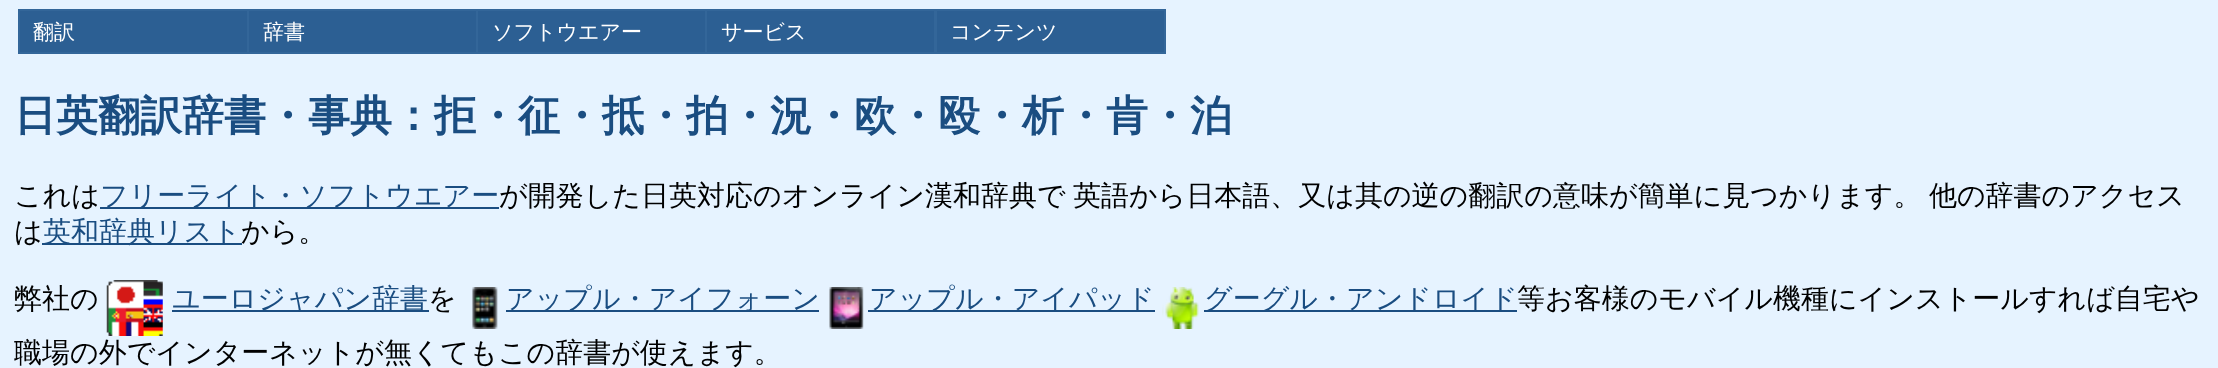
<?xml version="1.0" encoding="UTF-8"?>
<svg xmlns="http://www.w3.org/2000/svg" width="2218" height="368">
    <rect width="100%" height="100%" fill="#E6F3FF"/>
    <rect x="19" y="10" width="229" height="43" fill="#2C5F93" stroke="#336699" stroke-width="2"/>
    <text x="33" y="39" font-family="WenQuanYi Zen Hei" font-size="21" font-weight="500" fill="#FFFFFF">翻訳</text>
    <rect x="248" y="10" width="229" height="43" fill="#2C5F93" stroke="#336699" stroke-width="2"/>
    <text x="263" y="39" font-family="WenQuanYi Zen Hei" font-size="21" font-weight="500" fill="#FFFFFF">辞書</text>
    <rect x="477" y="10" width="229" height="43" fill="#2C5F93" stroke="#336699" stroke-width="2"/>
    <text x="492" y="39" font-family="WenQuanYi Zen Hei" font-size="21" font-weight="500" fill="#FFFFFF">ソフトウエアー</text>
    <rect x="706" y="10" width="229" height="43" fill="#2C5F93" stroke="#336699" stroke-width="2"/>
    <text x="721" y="39" font-family="WenQuanYi Zen Hei" font-size="21" font-weight="500" fill="#FFFFFF">サービス</text>
    <rect x="936" y="10" width="229" height="43" fill="#2C5F93" stroke="#336699" stroke-width="2"/>
    <text x="950" y="39" font-family="WenQuanYi Zen Hei" font-size="21" font-weight="500" fill="#FFFFFF">コンテンツ</text>
    <text x="14" y="130" font-family="WenQuanYi Zen Hei" font-size="42" font-weight="700" fill="#1A4D81">日英翻訳辞書・事典：拒・征・抵・拍・況・欧・殴・析・肯・泊</text>
    <text x="14" y="205" font-family="WenQuanYi Zen Hei" font-size="28" font-weight="500" fill="#000000">これは</text>
    <rect x="100" y="207" width="399" height="2" fill="#1A4D81"/>
    <text x="100" y="205" font-family="WenQuanYi Zen Hei" font-size="28" font-weight="500" fill="#1A4D81">フリーライト・ソフトウエアー</text>
    <text x="499" y="205" word-spacing="-1" font-family="WenQuanYi Zen Hei" font-size="28" font-weight="500" fill="#000000">が開発した日英対応のオンライン漢和辞典で 英語から日本語、又は其の逆の翻訳の意味が簡単に見つかります。 他の辞書のアクセス</text>
    <text x="14" y="241" font-family="WenQuanYi Zen Hei" font-size="28" font-weight="500" fill="#000000">は</text>
    <rect x="42" y="243" width="200" height="2" fill="#1A4D81"/>
    <text x="43" y="241" font-family="WenQuanYi Zen Hei" font-size="28" font-weight="500" fill="#1A4D81">英和辞典リスト</text>
    <text x="241" y="241" font-family="WenQuanYi Zen Hei" font-size="28" font-weight="500" fill="#000000">から。</text>
    <text x="14" y="308" font-family="WenQuanYi Zen Hei" font-size="28" font-weight="500" fill="#000000">弊社の</text>
    <image x="106" y="280" width="57" height="56" href="img_01.png"/>
    <rect x="172" y="310" width="257" height="2" fill="#1A4D81"/>
    <text x="172" y="308" font-family="WenQuanYi Zen Hei" font-size="28" font-weight="500" fill="#1A4D81">ユーロジャパン辞書</text>
    <text x="428" y="308" font-family="WenQuanYi Zen Hei" font-size="28" font-weight="500" fill="#000000">を</text>
    <image x="472" y="287" width="26" height="42" href="img_02.png"/>
    <rect x="506" y="310" width="313" height="2" fill="#1A4D81"/>
    <text x="506" y="308" font-family="WenQuanYi Zen Hei" font-size="28" font-weight="500" fill="#1A4D81">アップル・アイフォーン</text>
    <image x="829" y="287" width="35" height="42" href="img_03.png"/>
    <rect x="868" y="310" width="287" height="2" fill="#1A4D81"/>
    <text x="869" y="308" font-family="WenQuanYi Zen Hei" font-size="28" font-weight="500" fill="#1A4D81">アップル・アイパッド</text>
    <image x="1162" y="287" width="37" height="42" href="img_04.png"/>
    <rect x="1204" y="310" width="313" height="2" fill="#1A4D81"/>
    <text x="1204" y="308" font-family="WenQuanYi Zen Hei" font-size="28" font-weight="500" fill="#1A4D81">グーグル・アンドロイド</text>
    <text x="1517" y="308" font-family="WenQuanYi Zen Hei" font-size="28" font-weight="500" fill="#000000">等お客様のモバイル機種にインストールすれば自宅や</text>
    <text x="14" y="362" font-family="WenQuanYi Zen Hei" font-size="28" font-weight="500" fill="#000000">職場の外でインターネットが無くてもこの辞書が使えます。</text>
</svg>
